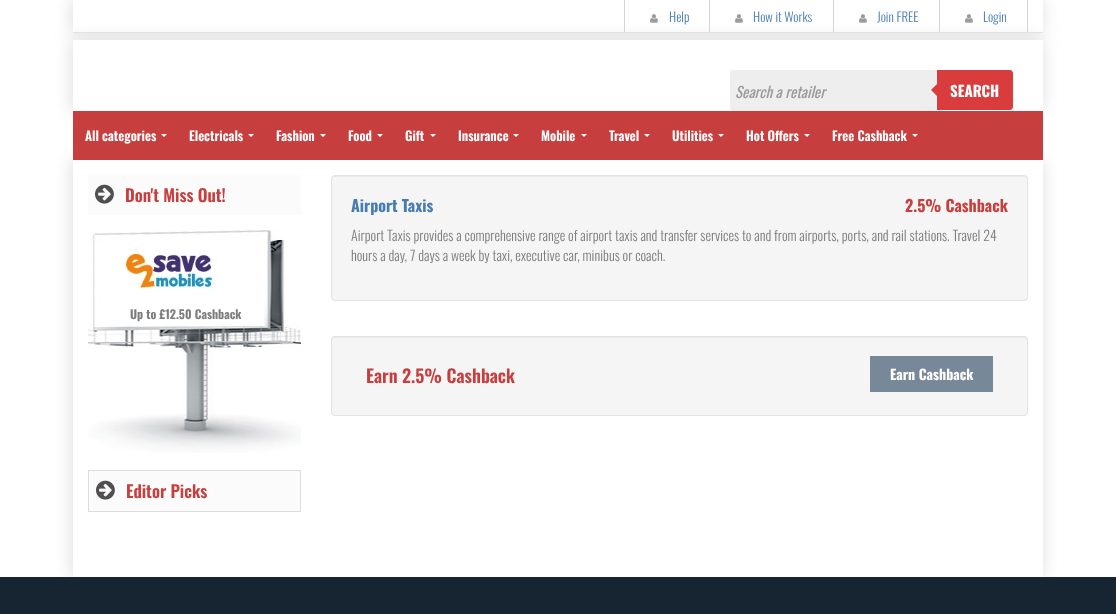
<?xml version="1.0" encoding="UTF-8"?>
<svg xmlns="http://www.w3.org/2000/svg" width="1116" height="614">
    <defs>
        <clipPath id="clip1"><path d="M 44 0 H 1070 V 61 H 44 Z M 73 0 H 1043 V 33 H 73 Z" clip-rule="evenodd"/></clipPath>
        <filter id="blur1" x="-50%" y="-200%" width="200%" height="500%"><feGaussianBlur stdDeviation="9"/></filter>
        <clipPath id="clip2"><path d="M 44 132 H 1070 V 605 H 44 Z M 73 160 H 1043 V 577 H 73 Z" clip-rule="evenodd"/></clipPath>
    </defs>
    <rect width="100%" height="100%" fill="#FFFFFF"/>
    <g clip-path="url(#clip1)">
        <rect x="72" y="0" width="970" height="33" fill="#DBDBDB" filter="url(#blur1)"/>
    </g>
    <rect x="73" y="32" width="970" height="1" fill="#E3E3E3"/>
    <rect x="709" y="0" width="1" height="32" fill="#D3D3D3"/>
    <rect x="624" y="0" width="1" height="32" fill="#D3D3D3"/>
    <image x="650" y="14" width="8" height="9" href="img_01.png"/>
    <text x="669" y="22" font-family="Oswald" font-size="13" font-weight="300" fill="#487CB1">Help</text>
    <rect x="833" y="0" width="1" height="32" fill="#D3D3D3"/>
    <image x="735" y="14" width="8" height="9" href="img_01.png"/>
    <text x="753" y="22" font-family="Oswald" font-size="13" font-weight="300" fill="#487CB1">How it Works</text>
    <rect x="939" y="0" width="1" height="32" fill="#D3D3D3"/>
    <image x="859" y="14" width="8" height="9" href="img_01.png"/>
    <text x="877" y="22" font-family="Oswald" font-size="13" font-weight="300" fill="#487CB1">Join FREE</text>
    <rect x="1027" y="0" width="1" height="32" fill="#D3D3D3"/>
    <image x="965" y="14" width="8" height="9" href="img_01.png"/>
    <text x="983" y="22" font-family="Oswald" font-size="13" font-weight="300" fill="#487CB1">Login</text>
    <rect x="72" y="40" width="970" height="71" fill="#DBDBDB" filter="url(#blur1)"/>
    <rect x="73" y="40" width="970" height="71" fill="#FFFFFF"/>
    <path d="M 733 70 H 937 V 111 H 733 C 731.5 111 730 109.5 730 108 V 73 C 730 71.5 731.5 70 733 70 Z" fill="#EEEEEE"/>
    <text x="735" y="98" font-family="Oswald" font-size="15" font-style="italic" fill="#999999">Search a retailer</text>
    <path d="M 937 70 H 1010 C 1011.5 70 1013 71.5 1013 73 V 107 C 1013 108.5 1011.5 110 1010 110 H 937 Z" fill="#D83C3C"/>
    <path d="M 939 82 V 98 L 931 90 Z" fill="#D83C3C"/>
    <text x="950" y="97" font-family="Oswald" font-size="15" font-weight="700" fill="#FFFFFF">SEARCH</text>
    <g clip-path="url(#clip2)">
        <rect x="72" y="160" width="970" height="417" fill="#DBDBDB" filter="url(#blur1)"/>
    </g>
    <rect x="73" y="111" width="970" height="49" fill="#C73E3E"/>
    <text x="85" y="141" font-family="Oswald" font-size="13" font-weight="600" fill="#FFFFFF">All categories</text>
    <path d="M 161 134 H 167 L 164 137 Z" fill="#FFFFFF"/>
    <text x="189" y="141" font-family="Oswald" font-size="13" font-weight="600" fill="#FFFFFF">Electricals</text>
    <path d="M 248 134 H 254 L 251 137 Z" fill="#FFFFFF"/>
    <text x="276" y="141" font-family="Oswald" font-size="13" font-weight="600" fill="#FFFFFF">Fashion</text>
    <path d="M 320 134 H 326 L 323 137 Z M 377 134 H 383 L 380 137 Z" fill="#FFFFFF"/>
    <text x="348" y="141" font-family="Oswald" font-size="13" font-weight="600" fill="#FFFFFF">Food</text>
    <text x="405" y="141" font-family="Oswald" font-size="13" font-weight="600" fill="#FFFFFF">Gift</text>
    <path d="M 430 134 H 436 L 433 137 Z" fill="#FFFFFF"/>
    <text x="458" y="141" font-family="Oswald" font-size="13" font-weight="600" fill="#FFFFFF">Insurance</text>
    <path d="M 513 134 H 519 L 516 137 Z" fill="#FFFFFF"/>
    <text x="541" y="141" font-family="Oswald" font-size="13" font-weight="600" fill="#FFFFFF">Mobile</text>
    <path d="M 581 134 H 587 L 584 137 Z" fill="#FFFFFF"/>
    <text x="609" y="141" font-family="Oswald" font-size="13" font-weight="600" fill="#FFFFFF">Travel</text>
    <path d="M 644 134 H 650 L 647 137 Z" fill="#FFFFFF"/>
    <text x="672" y="141" font-family="Oswald" font-size="13" font-weight="600" fill="#FFFFFF">Utilities</text>
    <path d="M 718 134 H 724 L 721 137 Z" fill="#FFFFFF"/>
    <text x="746" y="141" font-family="Oswald" font-size="13" font-weight="600" fill="#FFFFFF">Hot Offers</text>
    <path d="M 804 134 H 810 L 807 137 Z" fill="#FFFFFF"/>
    <text x="832" y="141" font-family="Oswald" font-size="13" font-weight="600" fill="#FFFFFF">Free Cashback</text>
    <path d="M 912 134 H 918 L 915 137 Z" fill="#FFFFFF"/>
    <rect x="88" y="175" width="213" height="40" fill="#FBFBFB"/>
    <image x="95" y="184" width="19" height="20" href="img_02.png"/>
    <text x="125" y="202" font-family="Oswald" font-size="17" font-weight="600" fill="#C73E3E">Don't Miss Out!</text>
    <image x="88" y="230" width="213" height="223" href="img_03.png"/>
    <image x="122" y="248" width="96" height="41" href="img_04.png"/>
    <text x="130" y="319" font-family="Oswald" font-size="12" font-weight="700" fill="#7D7D7D">Up to £12.50 Cashback</text>
    <rect x="88.5" y="470.5" width="212" height="41" fill="none" stroke="#DDDDDD"/>
    <rect x="89" y="471" width="211" height="40" fill="#FBFBFB"/>
    <image x="96" y="480" width="19" height="20" href="img_02.png"/>
    <text x="126" y="498" font-family="Oswald" font-size="17" font-weight="600" fill="#C73E3E">Editor Picks</text>
    <rect x="331" y="175" width="697" height="126" rx="4" fill="#F5F5F5"/>
    <path d="M 335 177 H 1024 C 1026 177 1027 178 1027 180 C 1027 178 1026 176 1024 176 H 335 C 333 176 332 178 332 180 C 332 178 333 177 335 177 Z" fill="#E9E9E9"/>
    <rect x="331.5" y="175.5" width="696" height="125" rx="3.5" fill="none" stroke="#E3E3E3"/>
    <text x="351" y="212" font-family="Oswald" font-size="16" font-weight="700" fill="#487CB1">Airport Taxis</text>
    <text x="905" y="212" font-family="Oswald" font-size="16" font-weight="700" fill="#C73E3E">2.5% Cashback</text>
    <text font-family="Oswald" font-size="14" font-weight="300" fill="#7D7D7D">
        <tspan x="351" y="241">Airport Taxis provides a comprehensive range of airport taxis and transfer services to and from airports, ports, and rail stations. Travel 24</tspan>
        <tspan x="351" y="261">hours a day, 7 days a week by taxi, executive car, minibus or coach.</tspan>
    </text>
    <rect x="331" y="336" width="697" height="80" rx="4" fill="#F5F5F5"/>
    <path d="M 335 338 H 1024 C 1026 338 1027 339 1027 341 C 1027 339 1026 337 1024 337 H 335 C 333 337 332 339 332 341 C 332 339 333 338 335 338 Z" fill="#E9E9E9"/>
    <rect x="331.5" y="336.5" width="696" height="79" rx="3.5" fill="none" stroke="#E3E3E3"/>
    <text x="366" y="383" font-family="Oswald" font-size="18" font-weight="600" fill="#C73E3E">Earn 2.5% Cashback</text>
    <rect x="870" y="356" width="123" height="36" fill="#778899"/>
    <text x="890" y="380" font-family="Oswald" font-size="14" font-weight="700" fill="#FFFFFF">Earn Cashback</text>
    <rect x="0" y="577" width="1116" height="37" fill="#172431"/>
</svg>
